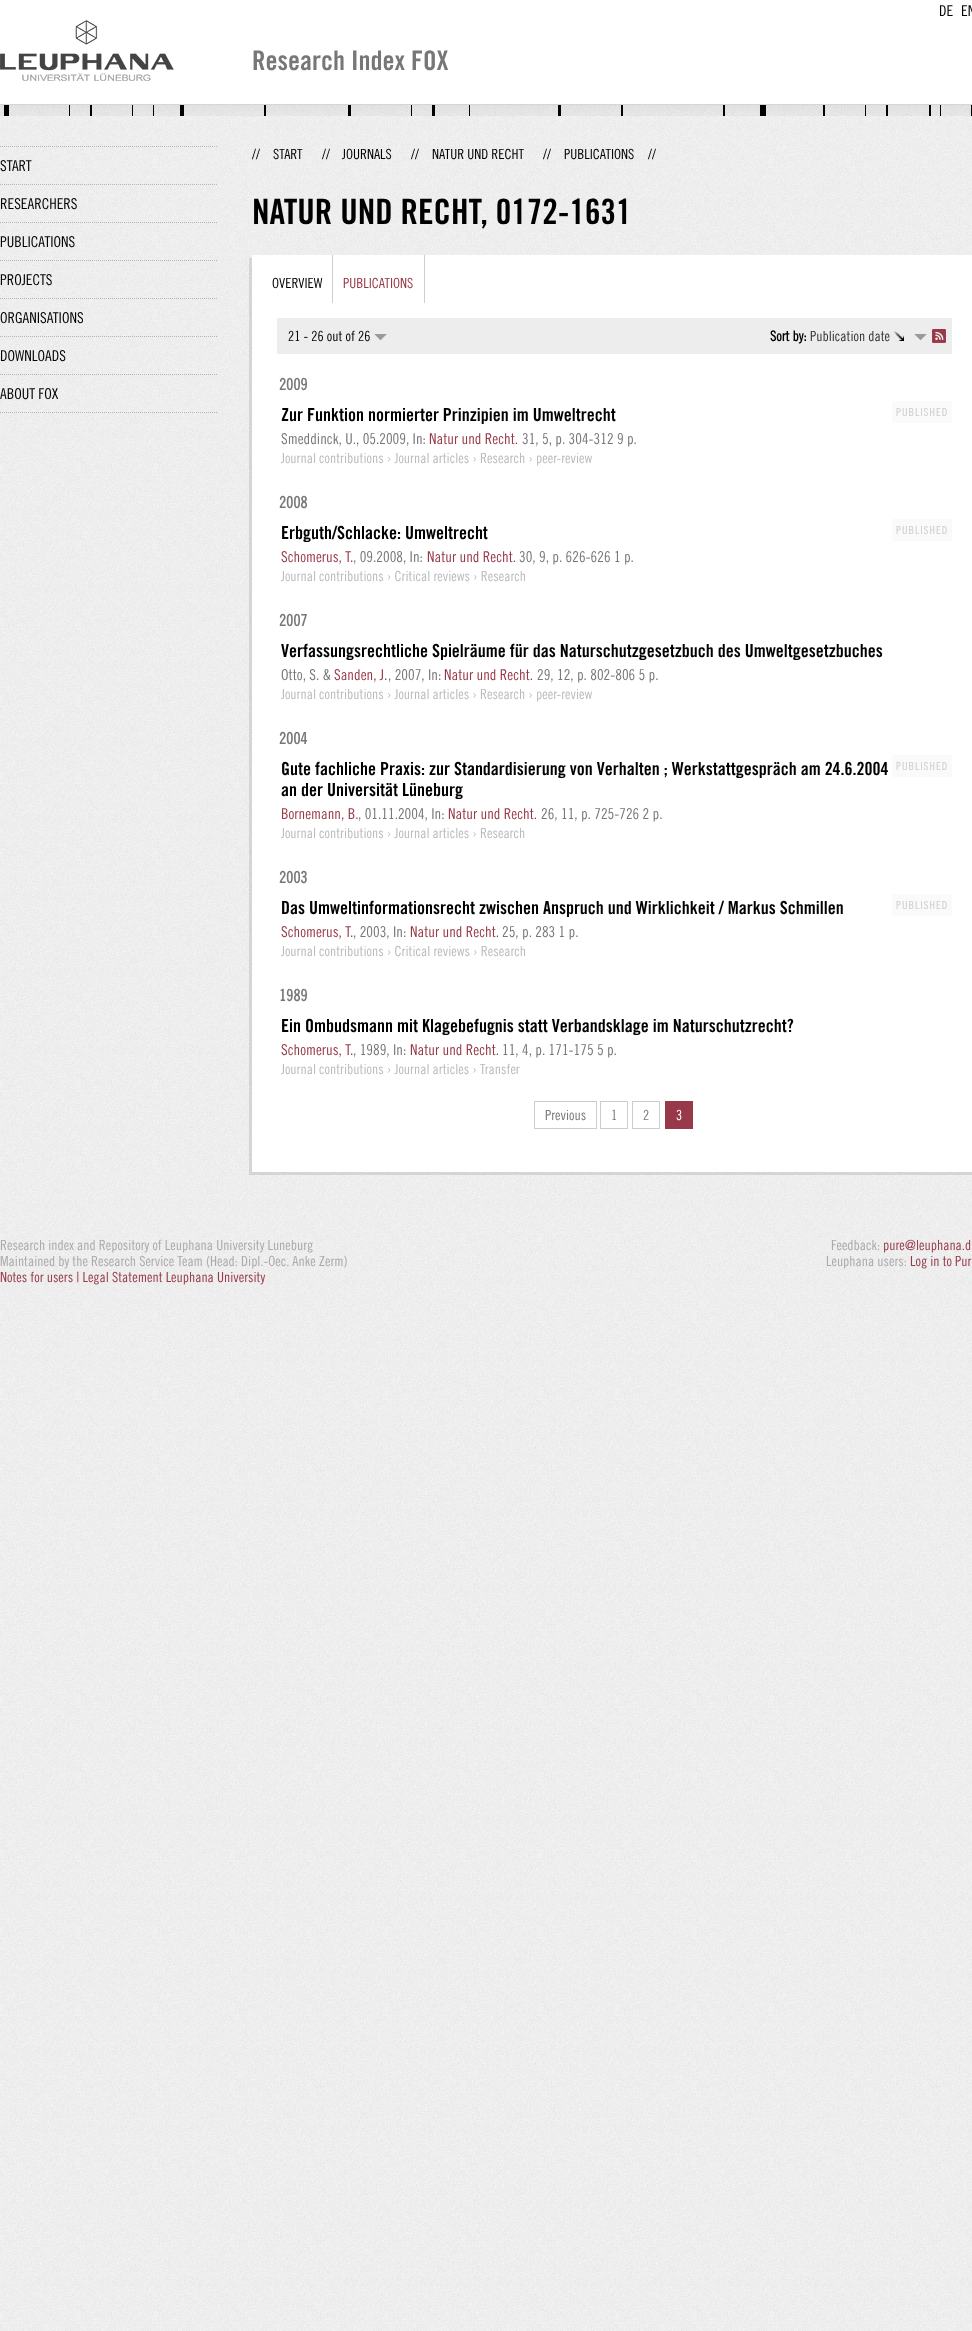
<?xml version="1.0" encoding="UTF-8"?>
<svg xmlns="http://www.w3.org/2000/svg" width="972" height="2331">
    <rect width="100%" height="100%" fill="#FFFFFF"/>
    <image x="0" y="116" width="972" height="2215" href="img_01.png"/>
    <rect x="0" y="104" width="972" height="1" fill="#D6D6D6"/>
    <text x="939" y="16" font-family="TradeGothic" font-size="15" fill="#000000">DE</text>
    <text x="961" y="16" font-family="TradeGothic" font-size="15" fill="#000000">EN</text>
    <image x="0" y="20" width="174" height="61" href="img_02.png"/>
    <text x="252" y="70" font-family="'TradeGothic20'" font-size="27" font-weight="700" fill="#777777">Research Index FOX</text>
    <image x="0" y="105" width="972" height="11" href="img_03.png"/>
    <path d="M 0 412.5 H 217" fill="none" stroke="#B5B5B5" stroke-dasharray="1 1"/>
    <path d="M 0 146.5 H 217" fill="none" stroke="#B5B5B5" stroke-dasharray="1 1"/>
    <text x="0" y="171" font-family="TradeGothic" font-size="15" fill="#000000">START</text>
    <path d="M 0 184.5 H 217" fill="none" stroke="#B5B5B5" stroke-dasharray="1 1"/>
    <text x="0" y="209" font-family="TradeGothic" font-size="15" fill="#000000">RESEARCHERS</text>
    <path d="M 0 222.5 H 217" fill="none" stroke="#B5B5B5" stroke-dasharray="1 1"/>
    <text x="0" y="247" font-family="TradeGothic" font-size="15" fill="#000000">PUBLICATIONS</text>
    <path d="M 0 260.5 H 217" fill="none" stroke="#B5B5B5" stroke-dasharray="1 1"/>
    <text x="0" y="285" font-family="TradeGothic" font-size="15" fill="#000000">PROJECTS</text>
    <path d="M 0 298.5 H 217" fill="none" stroke="#B5B5B5" stroke-dasharray="1 1"/>
    <text x="0" y="323" font-family="TradeGothic" font-size="15" fill="#000000">ORGANISATIONS</text>
    <path d="M 0 336.5 H 217" fill="none" stroke="#B5B5B5" stroke-dasharray="1 1"/>
    <text x="0" y="361" font-family="TradeGothic" font-size="15" fill="#000000">DOWNLOADS</text>
    <path d="M 0 374.5 H 217" fill="none" stroke="#B5B5B5" stroke-dasharray="1 1"/>
    <text x="0" y="399" font-family="TradeGothic" font-size="15" fill="#000000">ABOUT FOX</text>
    <text x="252" y="159" font-family="TradeGothic" font-size="14" fill="#000000">//</text>
    <text x="273" y="159" font-family="TradeGothic" font-size="14" fill="#000000">START</text>
    <text x="322" y="159" font-family="TradeGothic" font-size="14" fill="#000000">//</text>
    <text x="342" y="159" font-family="TradeGothic" font-size="14" fill="#000000">JOURNALS</text>
    <text x="411" y="159" font-family="TradeGothic" font-size="14" fill="#000000">//</text>
    <text x="432" y="159" font-family="TradeGothic" font-size="14" fill="#000000">NATUR UND RECHT</text>
    <text x="543" y="159" font-family="TradeGothic" font-size="14" fill="#000000">//</text>
    <text x="564" y="159" font-family="TradeGothic" font-size="14" fill="#000000">PUBLICATIONS</text>
    <text x="648" y="159" font-family="TradeGothic" font-size="14" fill="#000000">//</text>
    <text x="252" y="224" font-family="'TradeGothic20'" font-size="35" font-weight="700" fill="#000000">NATUR UND RECHT, 0172-1631</text>
    <path d="M 249 258 V 1175 H 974 V 1172 H 252 V 258 Z" fill="#000000" fill-opacity="0.1"/>
    <rect x="252" y="255" width="720" height="917" fill="#FFFFFF"/>
    <rect x="332" y="255" width="1" height="48" fill="#CDCDCD"/>
    <text x="272" y="288" font-family="TradeGothic" font-size="14" fill="#000000">OVERVIEW</text>
    <rect x="424" y="255" width="1" height="48" fill="#CDCDCD"/>
    <text x="343" y="288" font-family="TradeGothic" font-size="14" fill="#973948">PUBLICATIONS</text>
    <rect x="277" y="318" width="675" height="36" fill="#EDEDED"/>
    <image x="374" y="334" width="13" height="7" href="img_04.png"/>
    <text x="288" y="341" font-family="TradeGothic" font-size="14" fill="#000000">21 - 26 out of 26</text>
    <image x="914" y="334" width="13" height="7" href="img_04.png"/>
    <text x="770" y="341" font-family="TradeGothic" font-size="14" font-weight="700" fill="#000000">Sort by:</text>
    <text x="810" y="341" font-family="TradeGothic" font-size="14" fill="#333333">Publication date</text>
    <image x="894" y="331" width="10" height="10" href="img_05.png"/>
    <image x="932" y="329" width="14" height="14" href="img_06.png"/>
    <text x="279" y="390" font-family="TradeGothic" font-size="16" font-weight="700" fill="#777777">2009</text>
    <text x="281" y="421" font-family="'TradeGothic20'" font-size="18" font-weight="700" fill="#000000">Zur Funktion normierter Prinzipien im Umweltrecht</text>
    <text x="281" y="444" font-family="TradeGothic" font-size="15" fill="#777777">Smeddinck, U., 05.2009, In:</text>
    <text x="429" y="444" font-family="TradeGothic" font-size="15" fill="#973948">Natur und Recht.</text>
    <text x="522" y="444" font-family="TradeGothic" font-size="15" fill="#777777">31, 5, p. 304-312 9 p.</text>
    <text x="281" y="463" font-family="TradeGothic" font-size="14" fill="#BBBBBB">Journal contributions › Journal articles › Research › peer-review</text>
    <rect x="892" y="401" width="60" height="22" fill="#FAFAFA"/>
    <text x="896" y="416" font-family="TradeGothic" font-size="11" letter-spacing="1" fill="#CCCCCC">PUBLISHED</text>
    <text x="279" y="508" font-family="TradeGothic" font-size="16" font-weight="700" fill="#777777">2008</text>
    <text x="281" y="539" font-family="'TradeGothic20'" font-size="18" font-weight="700" fill="#000000">Erbguth/Schlacke: Umweltrecht</text>
    <text x="281" y="562" font-family="TradeGothic" font-size="15" fill="#973948">Schomerus, T.</text>
    <text x="353" y="562" font-family="TradeGothic" font-size="15" fill="#777777">, 09.2008, In:</text>
    <text x="427" y="562" font-family="TradeGothic" font-size="15" fill="#973948">Natur und Recht.</text>
    <text x="519" y="562" font-family="TradeGothic" font-size="15" fill="#777777">30, 9, p. 626-626 1 p.</text>
    <text x="281" y="581" font-family="TradeGothic" font-size="14" fill="#BBBBBB">Journal contributions › Critical reviews › Research</text>
    <rect x="892" y="519" width="60" height="22" fill="#FAFAFA"/>
    <text x="896" y="534" font-family="TradeGothic" font-size="11" letter-spacing="1" fill="#CCCCCC">PUBLISHED</text>
    <text x="279" y="626" font-family="TradeGothic" font-size="16" font-weight="700" fill="#777777">2007</text>
    <text x="281" y="657" font-family="'TradeGothic20'" font-size="18" font-weight="700" fill="#000000">Verfassungsrechtliche Spielräume für das Naturschutzgesetzbuch des Umweltgesetzbuches</text>
    <text x="281" y="680" font-family="TradeGothic" font-size="15" fill="#777777">Otto, S. &amp;</text>
    <text x="334" y="680" font-family="TradeGothic" font-size="15" fill="#973948">Sanden, J.</text>
    <text x="388" y="680" font-family="TradeGothic" font-size="15" fill="#777777">, 2007, In:</text>
    <text x="444" y="680" font-family="TradeGothic" font-size="15" fill="#973948">Natur und Recht.</text>
    <text x="537" y="680" font-family="TradeGothic" font-size="15" fill="#777777">29, 12, p. 802-806 5 p.</text>
    <text x="281" y="699" font-family="TradeGothic" font-size="14" fill="#BBBBBB">Journal contributions › Journal articles › Research › peer-review</text>
    <text x="279" y="744" font-family="TradeGothic" font-size="16" font-weight="700" fill="#777777">2004</text>
    <text font-family="'TradeGothic20'" font-size="18" font-weight="700" fill="#000000">
        <tspan x="281" y="775">Gute fachliche Praxis: zur Standardisierung von Verhalten ; Werkstattgespräch am 24.6.2004</tspan>
        <tspan x="281" y="796">an der Universität Lüneburg</tspan>
    </text>
    <text x="281" y="819" font-family="TradeGothic" font-size="15" fill="#973948">Bornemann, B.</text>
    <text x="358" y="819" font-family="TradeGothic" font-size="15" fill="#777777">, 01.11.2004, In:</text>
    <text x="448" y="819" font-family="TradeGothic" font-size="15" fill="#973948">Natur und Recht.</text>
    <text x="541" y="819" font-family="TradeGothic" font-size="15" fill="#777777">26, 11, p. 725-726 2 p.</text>
    <text x="281" y="838" font-family="TradeGothic" font-size="14" fill="#BBBBBB">Journal contributions › Journal articles › Research</text>
    <rect x="892" y="755" width="60" height="22" fill="#FAFAFA"/>
    <text x="896" y="770" font-family="TradeGothic" font-size="11" letter-spacing="1" fill="#CCCCCC">PUBLISHED</text>
    <text x="279" y="883" font-family="TradeGothic" font-size="16" font-weight="700" fill="#777777">2003</text>
    <text x="281" y="914" font-family="'TradeGothic20'" font-size="18" font-weight="700" fill="#000000">Das Umweltinformationsrecht zwischen Anspruch und Wirklichkeit / Markus Schmillen</text>
    <text x="281" y="937" font-family="TradeGothic" font-size="15" fill="#973948">Schomerus, T.</text>
    <text x="353" y="937" font-family="TradeGothic" font-size="15" fill="#777777">, 2003, In:</text>
    <text x="410" y="937" font-family="TradeGothic" font-size="15" fill="#973948">Natur und Recht.</text>
    <text x="502" y="937" font-family="TradeGothic" font-size="15" fill="#777777">25, p. 283 1 p.</text>
    <text x="281" y="956" font-family="TradeGothic" font-size="14" fill="#BBBBBB">Journal contributions › Critical reviews › Research</text>
    <rect x="892" y="894" width="60" height="22" fill="#FAFAFA"/>
    <text x="896" y="909" font-family="TradeGothic" font-size="11" letter-spacing="1" fill="#CCCCCC">PUBLISHED</text>
    <text x="279" y="1001" font-family="TradeGothic" font-size="16" font-weight="700" fill="#777777">1989</text>
    <text x="281" y="1032" font-family="'TradeGothic20'" font-size="18" font-weight="700" fill="#000000">Ein Ombudsmann mit Klagebefugnis statt Verbandsklage im Naturschutzrecht?</text>
    <text x="281" y="1055" font-family="TradeGothic" font-size="15" fill="#973948">Schomerus, T.</text>
    <text x="353" y="1055" font-family="TradeGothic" font-size="15" fill="#777777">, 1989, In:</text>
    <text x="410" y="1055" font-family="TradeGothic" font-size="15" fill="#973948">Natur und Recht.</text>
    <text x="502" y="1055" font-family="TradeGothic" font-size="15" fill="#777777">11, 4, p. 171-175 5 p.</text>
    <text x="281" y="1074" font-family="TradeGothic" font-size="14" fill="#BBBBBB">Journal contributions › Journal articles › Transfer</text>
    <rect x="534.5" y="1101.5" width="62" height="27" fill="none" stroke="#CCCCCC"/>
    <text x="545" y="1120" font-family="TradeGothic" font-size="14" fill="#777777">Previous</text>
    <rect x="600.5" y="1101.5" width="27" height="27" fill="none" stroke="#CCCCCC"/>
    <text x="611" y="1120" font-family="TradeGothic" font-size="14" fill="#777777">1</text>
    <rect x="632.5" y="1101.5" width="27" height="27" fill="none" stroke="#CCCCCC"/>
    <text x="643" y="1120" font-family="TradeGothic" font-size="14" fill="#777777">2</text>
    <rect x="665" y="1101" width="28" height="28" fill="#973948"/>
    <text x="676" y="1120" font-family="TradeGothic" font-size="14" fill="#FFFFFF">3</text>
    <text font-family="TradeGothic" font-size="14" fill="#AAAAAA">
        <tspan x="0" y="1250">Research index and Repository of Leuphana University Luneburg</tspan>
        <tspan x="0" y="1266">Maintained by the Research Service Team (Head: Dipl.-Oec. Anke Zerm)</tspan>
    </text>
    <text x="0" y="1282" font-family="TradeGothic" font-size="14" fill="#973948">Notes for users | Legal Statement Leuphana University</text>
    <text x="831" y="1250" font-family="TradeGothic" font-size="14" fill="#AAAAAA">Feedback:</text>
    <text x="883" y="1250" font-family="TradeGothic" font-size="14" fill="#973948">pure@leuphana.d</text>
    <text x="826" y="1266" font-family="TradeGothic" font-size="14" fill="#AAAAAA">Leuphana users:</text>
    <text x="910" y="1266" font-family="TradeGothic" font-size="14" fill="#973948">Log in to Pur</text>
</svg>
